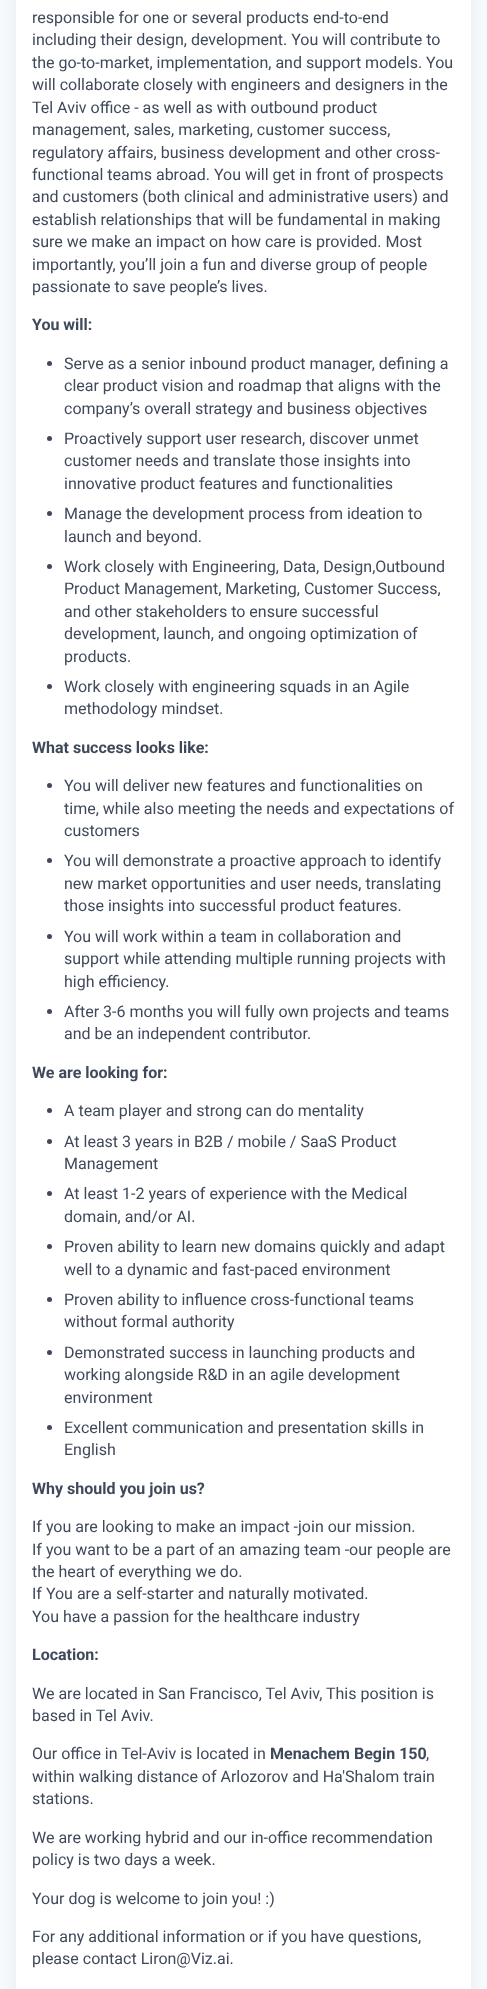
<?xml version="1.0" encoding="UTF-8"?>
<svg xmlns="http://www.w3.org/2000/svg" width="487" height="1989">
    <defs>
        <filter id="blur1" x="-50%" y="-200%" width="200%" height="500%"><feGaussianBlur stdDeviation="8"/></filter>
    </defs>
    <rect width="100%" height="100%" fill="#F7FAFC"/>
    <rect x="16" y="-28" width="455" height="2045" rx="4" fill="#1B2432" fill-opacity="0.06" filter="url(#blur1)"/>
    <rect x="16" y="0" width="455" height="1989" fill="#FFFFFF"/>
    <text font-family="Roboto" font-size="16" fill="#3F495A">
        <tspan x="32" y="23">responsible for one or several products end-to-end</tspan>
        <tspan x="32" y="45">including their design, development. You will contribute to</tspan>
        <tspan x="32" y="68">the go-to-market, implementation, and support models. You</tspan>
        <tspan x="32" y="90">will collaborate closely with engineers and designers in the</tspan>
        <tspan x="32" y="113">Tel Aviv office - as well as with outbound product</tspan>
        <tspan x="32" y="135">management, sales, marketing, customer success,</tspan>
        <tspan x="32" y="158">regulatory affairs, business development and other cross-</tspan>
        <tspan x="32" y="180">functional teams abroad. You will get in front of prospects</tspan>
        <tspan x="32" y="202">and customers (both clinical and administrative users) and</tspan>
        <tspan x="32" y="225">establish relationships that will be fundamental in making</tspan>
        <tspan x="32" y="247">sure we make an impact on how care is provided. Most</tspan>
        <tspan x="32" y="270">importantly, you’ll join a fun and diverse group of people</tspan>
        <tspan x="32" y="292">passionate to save people’s lives.</tspan>
    </text>
    <text x="32" y="330" font-family="Roboto" font-size="16" font-weight="700" fill="#3F495A">You will:</text>
    <circle cx="49.5" cy="363.5" r="2.5" fill="#3F495A"/>
    <text font-family="Roboto" font-size="16" fill="#3F495A">
        <tspan x="64" y="369">Serve as a senior inbound product manager, defining a</tspan>
        <tspan x="64" y="391">clear product vision and roadmap that aligns with the</tspan>
        <tspan x="64" y="414">company’s overall strategy and business objectives</tspan>
    </text>
    <circle cx="49.5" cy="438.5" r="2.5" fill="#3F495A"/>
    <text font-family="Roboto" font-size="16" fill="#3F495A">
        <tspan x="64" y="444">Proactively support user research, discover unmet</tspan>
        <tspan x="64" y="466">customer needs and translate those insights into</tspan>
        <tspan x="64" y="489">innovative product features and functionalities</tspan>
    </text>
    <circle cx="49.5" cy="513.5" r="2.5" fill="#3F495A"/>
    <text font-family="Roboto" font-size="16" fill="#3F495A">
        <tspan x="64" y="519">Manage the development process from ideation to</tspan>
        <tspan x="64" y="542">launch and beyond.</tspan>
    </text>
    <circle cx="49.5" cy="566.5" r="2.5" fill="#3F495A"/>
    <text font-family="Roboto" font-size="16" fill="#3F495A">
        <tspan x="64" y="572">Work closely with Engineering, Data, Design,Outbound</tspan>
        <tspan x="64" y="594">Product Management, Marketing, Customer Success,</tspan>
        <tspan x="64" y="617">and other stakeholders to ensure successful</tspan>
        <tspan x="64" y="639">development, launch, and ongoing optimization of</tspan>
        <tspan x="64" y="662">products.</tspan>
    </text>
    <circle cx="49.5" cy="686.5" r="2.5" fill="#3F495A"/>
    <text font-family="Roboto" font-size="16" fill="#3F495A">
        <tspan x="64" y="692">Work closely with engineering squads in an Agile</tspan>
        <tspan x="64" y="714">methodology mindset.</tspan>
    </text>
    <text x="32" y="753" font-family="Roboto" font-size="16" font-weight="700" fill="#3F495A">What success looks like:</text>
    <circle cx="49.5" cy="785.5" r="2.5" fill="#3F495A"/>
    <text font-family="Roboto" font-size="16" fill="#3F495A">
        <tspan x="64" y="791">You will deliver new features and functionalities on</tspan>
        <tspan x="64" y="814">time, while also meeting the needs and expectations of</tspan>
        <tspan x="64" y="836">customers</tspan>
    </text>
    <circle cx="49.5" cy="860.5" r="2.5" fill="#3F495A"/>
    <text font-family="Roboto" font-size="16" fill="#3F495A">
        <tspan x="64" y="866">You will demonstrate a proactive approach to identify</tspan>
        <tspan x="64" y="889">new market opportunities and user needs, translating</tspan>
        <tspan x="64" y="911">those insights into successful product features.</tspan>
    </text>
    <circle cx="49.5" cy="936.5" r="2.5" fill="#3F495A"/>
    <text font-family="Roboto" font-size="16" fill="#3F495A">
        <tspan x="64" y="942">You will work within a team in collaboration and</tspan>
        <tspan x="64" y="964">support while attending multiple running projects with</tspan>
        <tspan x="64" y="987">high efficiency.</tspan>
    </text>
    <circle cx="49.5" cy="1011.5" r="2.5" fill="#3F495A"/>
    <text font-family="Roboto" font-size="16" fill="#3F495A">
        <tspan x="64" y="1017">After 3-6 months you will fully own projects and teams</tspan>
        <tspan x="64" y="1039">and be an independent contributor.</tspan>
    </text>
    <text x="32" y="1078" font-family="Roboto" font-size="16" font-weight="700" fill="#3F495A">We are looking for:</text>
    <circle cx="49.5" cy="1110.5" r="2.5" fill="#3F495A"/>
    <text x="64" y="1116" font-family="Roboto" font-size="16" fill="#3F495A">A team player and strong can do mentality</text>
    <circle cx="49.5" cy="1141.5" r="2.5" fill="#3F495A"/>
    <text font-family="Roboto" font-size="16" fill="#3F495A">
        <tspan x="64" y="1147">At least 3 years in B2B / mobile / SaaS Product</tspan>
        <tspan x="64" y="1169">Management</tspan>
    </text>
    <circle cx="49.5" cy="1193.5" r="2.5" fill="#3F495A"/>
    <text font-family="Roboto" font-size="16" fill="#3F495A">
        <tspan x="64" y="1199">At least 1-2 years of experience with the Medical</tspan>
        <tspan x="64" y="1222">domain, and/or AI.</tspan>
    </text>
    <circle cx="49.5" cy="1246.5" r="2.5" fill="#3F495A"/>
    <text font-family="Roboto" font-size="16" fill="#3F495A">
        <tspan x="64" y="1252">Proven ability to learn new domains quickly and adapt</tspan>
        <tspan x="64" y="1275">well to a dynamic and fast-paced environment</tspan>
    </text>
    <circle cx="49.5" cy="1299.5" r="2.5" fill="#3F495A"/>
    <text font-family="Roboto" font-size="16" fill="#3F495A">
        <tspan x="64" y="1305">Proven ability to influence cross-functional teams</tspan>
        <tspan x="64" y="1327">without formal authority</tspan>
    </text>
    <circle cx="49.5" cy="1352.5" r="2.5" fill="#3F495A"/>
    <text font-family="Roboto" font-size="16" fill="#3F495A">
        <tspan x="64" y="1358">Demonstrated success in launching products and</tspan>
        <tspan x="64" y="1380">working alongside R&amp;D in an agile development</tspan>
        <tspan x="64" y="1403">environment</tspan>
    </text>
    <circle cx="49.5" cy="1427.5" r="2.5" fill="#3F495A"/>
    <text font-family="Roboto" font-size="16" fill="#3F495A">
        <tspan x="64" y="1433">Excellent communication and presentation skills in</tspan>
        <tspan x="64" y="1455">English</tspan>
    </text>
    <text x="32" y="1494" font-family="Roboto" font-size="16" font-weight="700" fill="#3F495A">Why should you join us?</text>
    <text font-family="Roboto" font-size="16" fill="#3F495A">
        <tspan x="32" y="1532">If you are looking to make an impact -join our mission.</tspan>
        <tspan x="32" y="1555">If you want to be a part of an amazing team -our people are</tspan>
        <tspan x="32" y="1577">the heart of everything we do.</tspan>
        <tspan x="32" y="1599">If You are a self-starter and naturally motivated.</tspan>
        <tspan x="32" y="1622">You have a passion for the healthcare industry</tspan>
    </text>
    <text x="32" y="1660" font-family="Roboto" font-size="16" font-weight="700" fill="#3F495A">Location:</text>
    <text font-family="Roboto" font-size="16" fill="#3F495A">
        <tspan x="32" y="1699">We are located in San Francisco, Tel Aviv, This position is</tspan>
        <tspan x="32" y="1721">based in Tel Aviv.</tspan>
    </text>
    <text x="32" y="1759" font-family="Roboto" font-size="16" fill="#3F495A">Our office in Tel-Aviv is located in</text>
    <text x="270" y="1759" font-family="Roboto" font-size="16" font-weight="700" fill="#3F495A">Menachem Begin 150</text>
    <text x="426" y="1759" font-family="Roboto" font-size="16" fill="#3F495A">,</text>
    <text font-family="Roboto" font-size="16" fill="#3F495A">
        <tspan x="32" y="1782">within walking distance of Arlozorov and Ha'Shalom train</tspan>
        <tspan x="32" y="1804">stations.</tspan>
    </text>
    <text font-family="Roboto" font-size="16" fill="#3F495A">
        <tspan x="32" y="1843">We are working hybrid and our in-office recommendation</tspan>
        <tspan x="32" y="1865">policy is two days a week.</tspan>
    </text>
    <text x="32" y="1904" font-family="Roboto" font-size="16" fill="#3F495A">Your dog is welcome to join you! :)</text>
    <text font-family="Roboto" font-size="16" fill="#3F495A">
        <tspan x="32" y="1942">For any additional information or if you have questions,</tspan>
        <tspan x="32" y="1964">please contact Liron@Viz.ai.</tspan>
    </text>
</svg>
